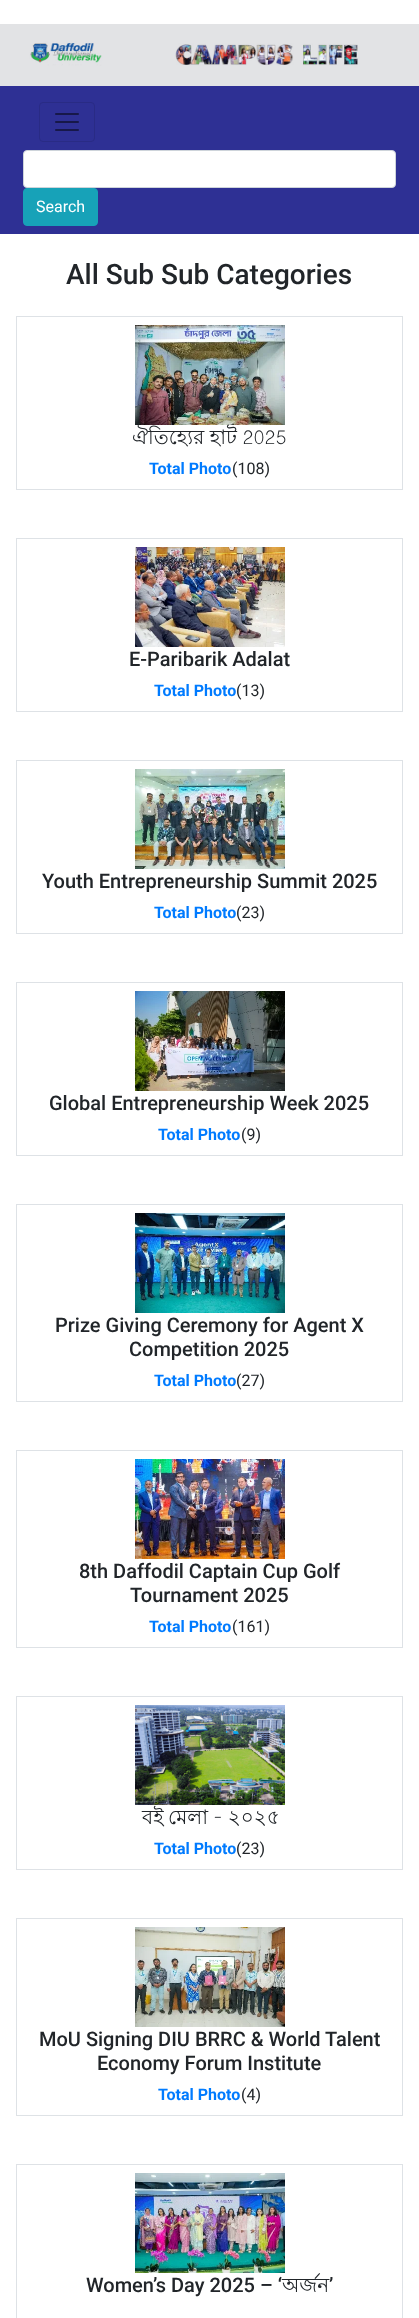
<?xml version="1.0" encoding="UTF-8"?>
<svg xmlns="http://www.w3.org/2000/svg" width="419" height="2318">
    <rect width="100%" height="100%" fill="#FFFFFF"/>
    <image x="0" y="24" width="419" height="62" href="img_01.png"/>
    <rect x="0" y="86" width="419" height="148" fill="#2E3094"/>
    <rect x="39.5" y="102.5" width="55" height="39" rx="3.5" fill="none" stroke="#292B85"/>
    <image x="55" y="113" width="24" height="18" href="img_02.png"/>
    <rect x="23.5" y="150.5" width="372" height="37" rx="3.5" fill="#FFFFFF" stroke="#CED4DA"/>
    <rect x="23.5" y="188.5" width="74" height="37" rx="3.5" fill="#17A2B8" stroke="#17A2B8"/>
    <text x="36" y="212" font-family="Roboto" font-size="16" fill="#FFFFFF">Search</text>
    <text x="66" y="284" font-family="Roboto" font-size="28" font-weight="500" fill="#212529">All Sub Sub Categories</text>
    <rect x="16.5" y="316.5" width="386" height="173" fill="none" stroke="#DEE2E6"/>
    <image x="135" y="325" width="150" height="100" href="img_03.png"/>
    <text x="132" y="444" font-family="Lohit Bengali" font-size="20" fill="#212529">ঐতিহ্যের হাট 2025</text>
    <text x="149" y="474" font-family="Roboto" font-size="16" font-weight="700" fill="#007BFF">Total Photo</text>
    <text x="232" y="474" font-family="Roboto" font-size="16" fill="#212529">(108)</text>
    <rect x="16.5" y="538.5" width="386" height="173" fill="none" stroke="#DEE2E6"/>
    <image x="135" y="547" width="150" height="100" href="img_04.png"/>
    <text x="129" y="666" font-family="Roboto" font-size="20" font-weight="500" fill="#212529">E-Paribarik Adalat</text>
    <text x="154" y="696" font-family="Roboto" font-size="16" font-weight="700" fill="#007BFF">Total Photo</text>
    <text x="236" y="696" font-family="Roboto" font-size="16" fill="#212529">(13)</text>
    <rect x="16.5" y="760.5" width="386" height="173" fill="none" stroke="#DEE2E6"/>
    <image x="135" y="769" width="150" height="100" href="img_05.png"/>
    <text x="42" y="888" font-family="Roboto" font-size="20" font-weight="500" fill="#212529">Youth Entrepreneurship Summit 2025</text>
    <text x="154" y="918" font-family="Roboto" font-size="16" font-weight="700" fill="#007BFF">Total Photo</text>
    <text x="236" y="918" font-family="Roboto" font-size="16" fill="#212529">(23)</text>
    <rect x="16.5" y="982.5" width="386" height="173" fill="none" stroke="#DEE2E6"/>
    <image x="135" y="991" width="150" height="100" href="img_06.png"/>
    <text x="49" y="1110" font-family="Roboto" font-size="20" font-weight="500" fill="#212529">Global Entrepreneurship Week 2025</text>
    <text x="158" y="1140" font-family="Roboto" font-size="16" font-weight="700" fill="#007BFF">Total Photo</text>
    <text x="241" y="1140" font-family="Roboto" font-size="16" fill="#212529">(9)</text>
    <rect x="16.5" y="1204.5" width="386" height="197" fill="none" stroke="#DEE2E6"/>
    <image x="135" y="1213" width="150" height="100" href="img_07.png"/>
    <text x="55" y="1332" font-family="Roboto" font-size="20" font-weight="500" fill="#212529">Prize Giving Ceremony for Agent X</text>
    <text x="129" y="1356" font-family="Roboto" font-size="20" font-weight="500" fill="#212529">Competition 2025</text>
    <text x="154" y="1386" font-family="Roboto" font-size="16" font-weight="700" fill="#007BFF">Total Photo</text>
    <text x="236" y="1386" font-family="Roboto" font-size="16" fill="#212529">(27)</text>
    <rect x="16.5" y="1450.5" width="386" height="197" fill="none" stroke="#DEE2E6"/>
    <image x="135" y="1459" width="150" height="100" href="img_08.png"/>
    <text x="79" y="1578" font-family="Roboto" font-size="20" font-weight="500" fill="#212529">8th Daffodil Captain Cup Golf</text>
    <text x="130" y="1602" font-family="Roboto" font-size="20" font-weight="500" fill="#212529">Tournament 2025</text>
    <text x="149" y="1632" font-family="Roboto" font-size="16" font-weight="700" fill="#007BFF">Total Photo</text>
    <text x="232" y="1632" font-family="Roboto" font-size="16" fill="#212529">(161)</text>
    <rect x="16.5" y="1696.5" width="386" height="173" fill="none" stroke="#DEE2E6"/>
    <image x="135" y="1705" width="150" height="100" href="img_09.png"/>
    <text x="142" y="1824" word-spacing="-1" font-family="Lohit Bengali" font-size="20" fill="#212529">বই মেলা - ২০২৫</text>
    <text x="154" y="1854" font-family="Roboto" font-size="16" font-weight="700" fill="#007BFF">Total Photo</text>
    <text x="236" y="1854" font-family="Roboto" font-size="16" fill="#212529">(23)</text>
    <rect x="16.5" y="1918.5" width="386" height="197" fill="none" stroke="#DEE2E6"/>
    <image x="135" y="1927" width="150" height="100" href="img_10.png"/>
    <text x="39" y="2046" font-family="Roboto" font-size="20" font-weight="500" fill="#212529">MoU Signing DIU BRRC &amp; World Talent</text>
    <text x="97" y="2070" font-family="Roboto" font-size="20" font-weight="500" fill="#212529">Economy Forum Institute</text>
    <text x="158" y="2100" font-family="Roboto" font-size="16" font-weight="700" fill="#007BFF">Total Photo</text>
    <text x="241" y="2100" font-family="Roboto" font-size="16" fill="#212529">(4)</text>
    <rect x="16.5" y="2164.5" width="386" height="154" fill="none" stroke="#DEE2E6"/>
    <image x="135" y="2173" width="150" height="100" href="img_11.png"/>
    <text x="86" y="2292" font-family="Roboto" font-size="20" font-weight="500" fill="#212529">Women’s Day 2025 – ‘</text>
    <text x="282" y="2292" font-family="Lohit Bengali" font-size="20" fill="#212529">অর্জন</text>
    <text x="329" y="2292" font-family="Roboto" font-size="20" font-weight="500" fill="#212529">’</text>
</svg>
